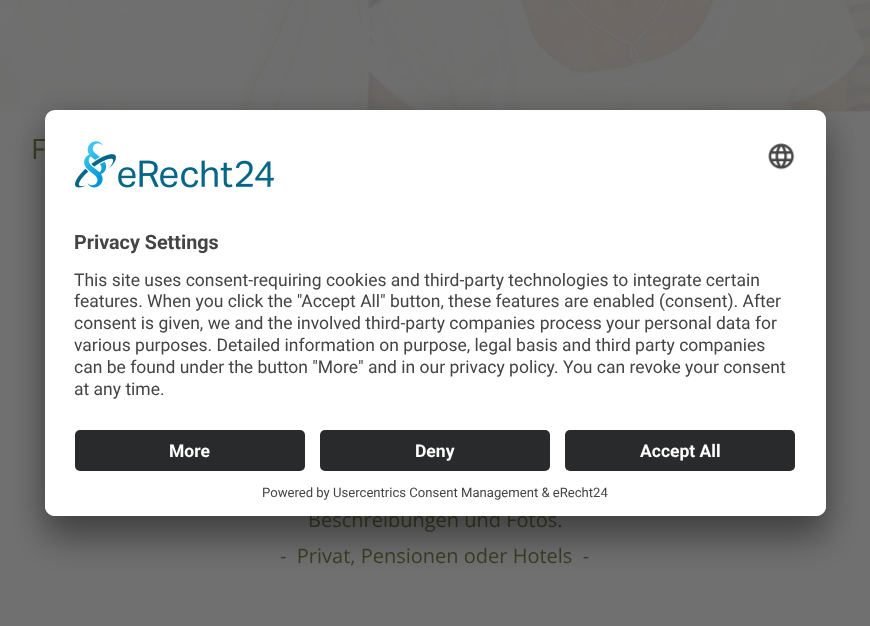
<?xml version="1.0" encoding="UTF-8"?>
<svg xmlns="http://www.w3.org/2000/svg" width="870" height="626">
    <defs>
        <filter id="blur1" x="-50%" y="-200%" width="200%" height="500%"><feGaussianBlur stdDeviation="17.5"/></filter>
        <filter id="blur2" x="-50%" y="-200%" width="200%" height="500%"><feGaussianBlur stdDeviation="16"/></filter>
        <clipPath id="clip1"><rect x="45" y="110" width="781" height="406" rx="10"/></clipPath>
        <clipPath id="clip2"><path d="M 55 110 H 816 C 821.5 110 826 114.5 826 120 V 420 H 45 V 120 C 45 114.5 49.5 110 55 110 Z"/></clipPath>
    </defs>
    <rect width="100%" height="100%" fill="#707070"/>
    <image x="0" y="0" width="870" height="112" href="img_01.png"/>
    <text x="31" y="159" font-family="Open Sans" font-size="28" fill="#383F24">F</text>
    <text x="308" y="527" font-family="Open Sans" font-size="20" fill="#383F24">Beschreibungen und Fotos.</text>
    <text x="280" y="563" font-family="Open Sans" font-size="20" fill="#383F24" xml:space="preserve">-  Privat, Pensionen oder Hotels  -</text>
    <rect x="45" y="135" width="781" height="406" rx="10" fill="#000000" fill-opacity="0.3" filter="url(#blur1)"/>
    <rect x="45" y="116" width="781" height="407" rx="10" fill="#000000" fill-opacity="0.22" filter="url(#blur2)"/>
    <rect x="45" y="110" width="781" height="406" rx="10" fill="#FFFFFF"/>
    <g clip-path="url(#clip1)">
        <g clip-path="url(#clip2)">
            <rect x="45" y="111" width="781" height="309" fill="#FFFFFF"/>
        </g>
    </g>
    <image x="75" y="141" width="199" height="47" href="img_02.png"/>
    <image x="768" y="143" width="27" height="27" href="img_03.png"/>
    <text x="74" y="249" font-family="Roboto" font-size="19.75" font-weight="700" fill="#444444">Privacy Settings</text>
    <text font-family="Roboto" font-size="17.5" fill="#444444">
        <tspan x="74" y="286">This site uses consent-requiring cookies and third-party technologies to integrate certain</tspan>
        <tspan x="74" y="307">features. When you click the "Accept All" button, these features are enabled (consent). After</tspan>
        <tspan x="74" y="329">consent is given, we and the involved third-party companies process your personal data for</tspan>
        <tspan x="74" y="351">various purposes. Detailed information on purpose, legal basis and third party companies</tspan>
        <tspan x="74" y="373">can be found under the button "More" and in our privacy policy. You can revoke your consent</tspan>
        <tspan x="74" y="395">at any time.</tspan>
    </text>
    <path d="M 45 420 H 826 V 506 C 826 511.5 821.5 516 816 516 H 55 C 49.5 516 45 511.5 45 506 Z" fill="#FFFFFF"/>
    <rect x="75" y="430" width="230" height="41" rx="5" fill="#292A2B"/>
    <text x="169" y="457" font-family="Roboto" font-size="17.5" font-weight="700" fill="#FFFFFF">More</text>
    <rect x="320" y="430" width="230" height="41" rx="5" fill="#292A2B"/>
    <text x="415" y="457" font-family="Roboto" font-size="17.5" font-weight="700" fill="#FFFFFF">Deny</text>
    <rect x="565" y="430" width="230" height="41" rx="5" fill="#292A2B"/>
    <text x="640" y="457" font-family="Roboto" font-size="17.5" font-weight="700" fill="#FFFFFF">Accept All</text>
    <text x="262" y="497" font-family="Roboto" font-size="13.1" fill="#444444">Powered by Usercentrics Consent Management &amp; eRecht24</text>
</svg>
